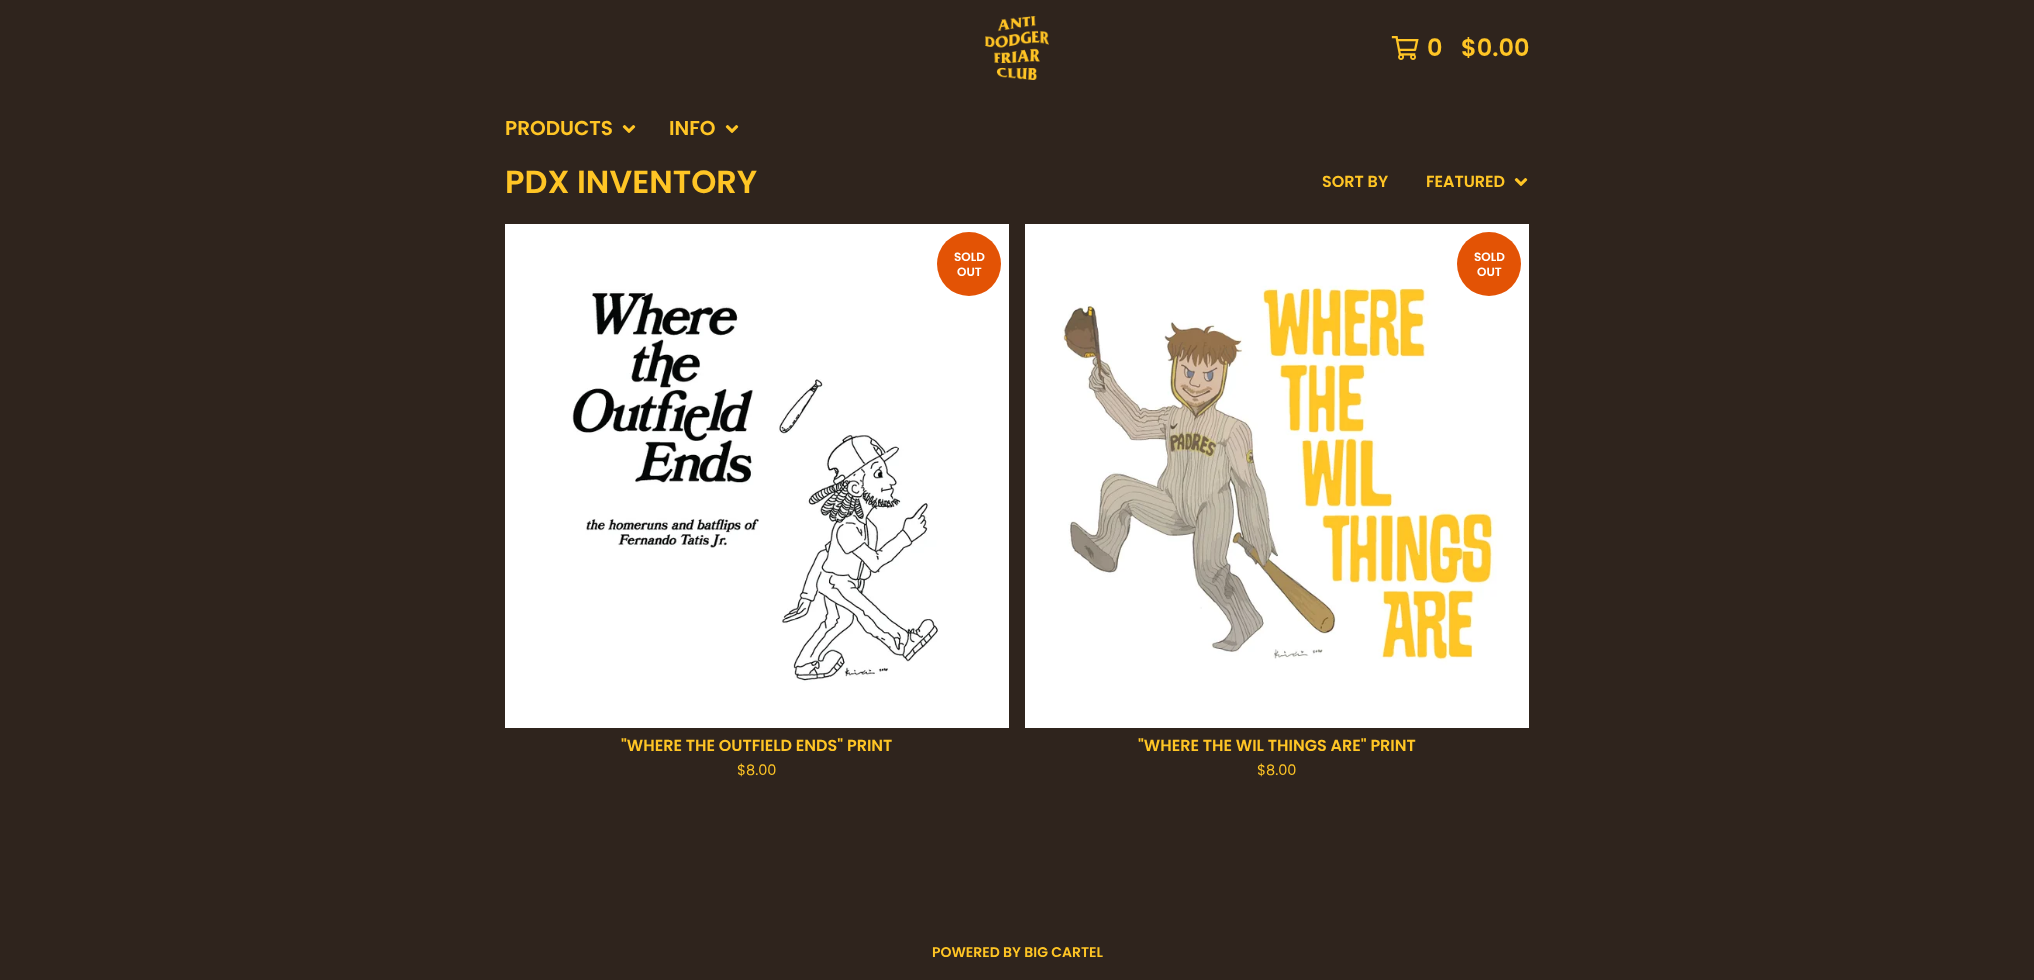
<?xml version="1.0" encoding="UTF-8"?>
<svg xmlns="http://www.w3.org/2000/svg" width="2034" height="980">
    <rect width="100%" height="100%" fill="#2F241D"/>
    <image x="985" y="16" width="64" height="64" href="img_01.png"/>
    <image x="1391" y="36" width="28" height="24" href="img_02.png"/>
    <text x="1427" y="56" font-family="Poppins" font-size="24" font-weight="600" fill="#FFC525">0</text>
    <text x="1461" y="56" font-family="Poppins" font-size="24" font-weight="600" fill="#FFC525">$0.00</text>
    <text x="505" y="135" font-family="Poppins" font-size="20" font-weight="600" fill="#FFC525">PRODUCTS</text>
    <image x="622" y="125" width="14" height="8" href="img_03.png"/>
    <text x="669" y="135" font-family="Poppins" font-size="20" font-weight="600" fill="#FFC525">INFO</text>
    <image x="725" y="125" width="14" height="8" href="img_03.png"/>
    <text x="505" y="193" font-family="Poppins" font-size="32" font-weight="600" fill="#FFC525">PDX INVENTORY</text>
    <text x="1322" y="187" font-family="Poppins" font-size="16" font-weight="600" fill="#FFC525">SORT BY</text>
    <text x="1426" y="187" font-family="Poppins" font-size="16" font-weight="600" fill="#FFC525">FEATURED</text>
    <image x="1514" y="178" width="14" height="8" href="img_03.png"/>
    <image x="505" y="224" width="504" height="504" href="img_04.png"/>
    <circle cx="969" cy="264" r="32" fill="#E35305"/>
    <text x="954" y="261" font-family="Poppins" font-size="12" font-weight="600" fill="#FFFFFF">SOLD</text>
    <text x="957" y="276" font-family="Poppins" font-size="12" font-weight="600" fill="#FFFFFF">OUT</text>
    <text x="621" y="751" font-family="Poppins" font-size="16" font-weight="600" fill="#FFC525">"WHERE THE OUTFIELD ENDS" PRINT</text>
    <text x="737" y="775" font-family="Poppins" font-size="14.5" fill="#FFC525">$8.00</text>
    <image x="1025" y="224" width="504" height="504" href="img_05.png"/>
    <circle cx="1489" cy="264" r="32" fill="#E35305"/>
    <text x="1474" y="261" font-family="Poppins" font-size="12" font-weight="600" fill="#FFFFFF">SOLD</text>
    <text x="1477" y="276" font-family="Poppins" font-size="12" font-weight="600" fill="#FFFFFF">OUT</text>
    <text x="1138" y="751" font-family="Poppins" font-size="16" font-weight="600" fill="#FFC525">"WHERE THE WIL THINGS ARE" PRINT</text>
    <text x="1257" y="775" font-family="Poppins" font-size="14.5" fill="#FFC525">$8.00</text>
    <text x="932" y="957" font-family="Poppins" font-size="14" font-weight="600" fill="#FFC525">POWERED BY BIG CARTEL</text>
</svg>
